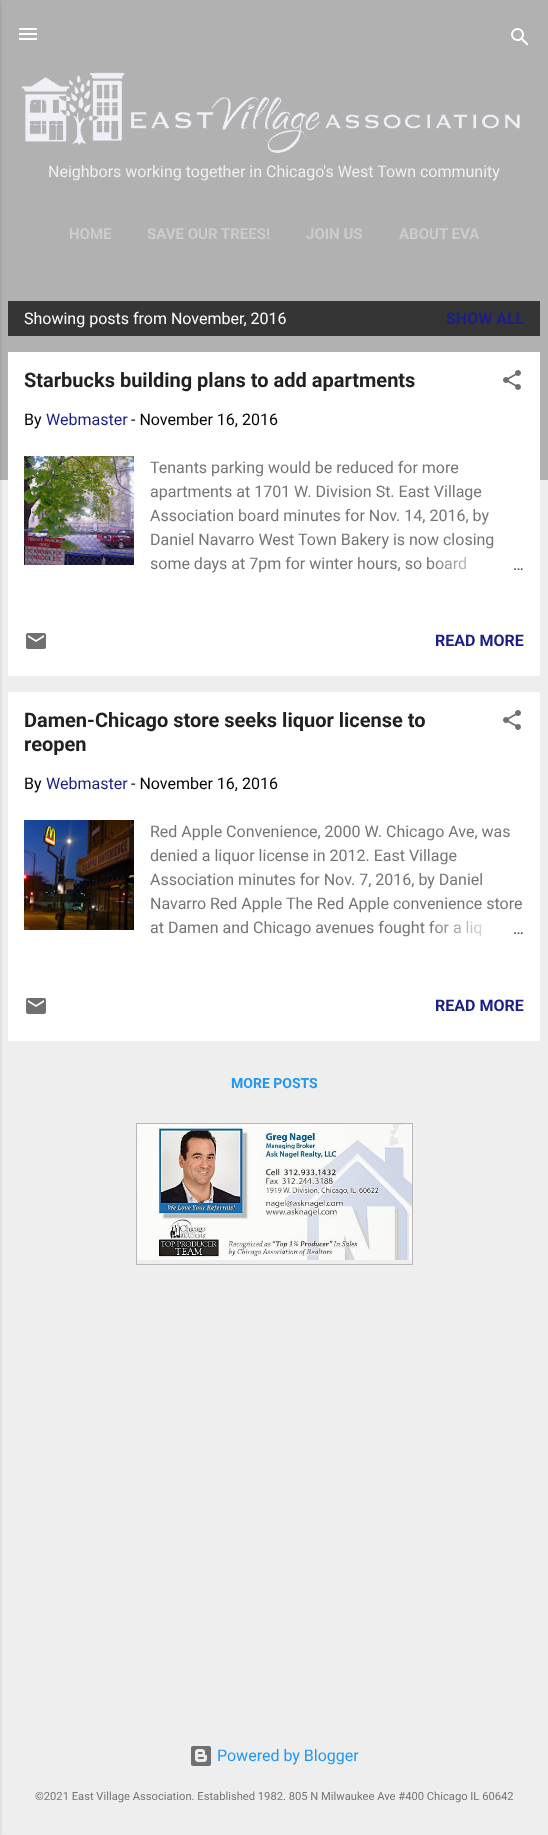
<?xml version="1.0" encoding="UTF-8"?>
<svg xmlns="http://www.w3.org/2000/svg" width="548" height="1835">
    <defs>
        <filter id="blur1" x="-50%" y="-200%" width="200%" height="500%"><feGaussianBlur stdDeviation="1.5"/></filter>
        <linearGradient id="g1" gradientUnits="userSpaceOnUse" x1="524" y1="564" x2="428" y2="564"><stop offset="0" stop-color="#FFFFFF"/><stop offset="0.2" stop-color="#FFFFFF"/><stop offset="1" stop-color="#FFFFFF" stop-opacity="0"/></linearGradient>
        <linearGradient id="g2" gradientUnits="userSpaceOnUse" x1="524" y1="928" x2="428" y2="928"><stop offset="0" stop-color="#FFFFFF"/><stop offset="0.2" stop-color="#FFFFFF"/><stop offset="1" stop-color="#FFFFFF" stop-opacity="0"/></linearGradient>
    </defs>
    <rect width="100%" height="100%" fill="#EEEEEE"/>
    <rect x="0" y="0" width="548" height="480" fill="#B1B1B1"/>
    <rect x="-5" y="1" width="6" height="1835" fill="#000000" fill-opacity="0.1" filter="url(#blur1)"/>
    <image x="19" y="28" width="18" height="12" href="img_01.png"/>
    <image x="511" y="28" width="18" height="18" href="img_02.png"/>
    <image x="21" y="72" width="500" height="81" href="img_03.png"/>
    <text x="48" y="177" font-family="Roboto" font-size="16" fill="#EFEFEF">Neighbors working together in Chicago's West Town community</text>
    <text x="69" y="239" font-family="Roboto" font-size="15" font-weight="700" fill="#CCCCCC">HOME</text>
    <text x="147" y="239" font-family="Roboto" font-size="15" font-weight="700" fill="#CCCCCC">SAVE OUR TREES!</text>
    <text x="306" y="239" font-family="Roboto" font-size="15" font-weight="700" fill="#CCCCCC">JOIN US</text>
    <text x="399" y="239" font-family="Roboto" font-size="15" font-weight="700" fill="#CCCCCC">ABOUT EVA</text>
    <rect x="8" y="301" width="532" height="35" fill="#353535"/>
    <text x="24" y="324" font-family="Roboto" font-size="16" fill="#FFFFFF">Showing posts from November, 2016</text>
    <text x="446" y="324" font-family="Roboto" font-size="16" font-weight="700" fill="#1B1E88">SHOW ALL</text>
    <rect x="8" y="352" width="532" height="324" fill="#FFFFFF"/>
    <text x="24" y="387" font-family="Roboto" font-size="20" font-weight="700" fill="#212121">Starbucks building plans to add apartments</text>
    <image x="503" y="370" width="18" height="20" href="img_04.png"/>
    <text x="24" y="425" font-family="Roboto" font-size="16" fill="#000000">By</text>
    <text x="46" y="425" font-family="Roboto" font-size="16" fill="#1B1E88">Webmaster</text>
    <text x="131" y="425" font-family="Roboto" font-size="16" fill="#000000">- November 16, 2016</text>
    <image x="24" y="456" width="110" height="109" href="img_05.png"/>
    <text font-family="Roboto" font-size="16" fill="#757575">
        <tspan x="150" y="473">Tenants parking would be reduced for more</tspan>
        <tspan x="150" y="497">apartments at 1701 W. Division St. East Village</tspan>
        <tspan x="150" y="521">Association board minutes for Nov. 14, 2016, by</tspan>
        <tspan x="150" y="545">Daniel Navarro West Town Bakery is now closing</tspan>
        <tspan x="150" y="569">some days at 7pm for winter hours, so board</tspan>
    </text>
    <rect x="430" y="557" width="36" height="13" fill="url(#g1)"/>
    <text x="513" y="570" font-family="Roboto" font-size="16" fill="#444444">…</text>
    <image x="26" y="633" width="20" height="16" href="img_06.png"/>
    <text x="435" y="646" font-family="Roboto" font-size="16" font-weight="700" fill="#1B1E88">READ MORE</text>
    <rect x="8" y="692" width="532" height="349" fill="#FFFFFF"/>
    <text font-family="Roboto" font-size="20" font-weight="700" fill="#212121">
        <tspan x="24" y="727">Damen-Chicago store seeks liquor license to</tspan>
        <tspan x="24" y="751">reopen</tspan>
    </text>
    <image x="503" y="710" width="18" height="20" href="img_04.png"/>
    <text x="24" y="789" font-family="Roboto" font-size="16" fill="#000000">By</text>
    <text x="46" y="789" font-family="Roboto" font-size="16" fill="#1B1E88">Webmaster</text>
    <text x="131" y="789" font-family="Roboto" font-size="16" fill="#000000">- November 16, 2016</text>
    <image x="24" y="820" width="110" height="110" href="img_07.png"/>
    <text font-family="Roboto" font-size="16" fill="#757575">
        <tspan x="150" y="837">Red Apple Convenience, 2000 W. Chicago Ave, was</tspan>
        <tspan x="150" y="861">denied a liquor license in 2012. East Village</tspan>
        <tspan x="150" y="885">Association minutes for Nov. 7, 2016, by Daniel</tspan>
        <tspan x="150" y="909">Navarro</tspan>
    </text>
    <text x="210" y="909" font-family="Roboto" font-size="16" fill="#757575">Red Apple</text>
    <text x="286" y="909" font-family="Roboto" font-size="16" fill="#757575">The Red Apple convenience store</text>
    <text x="150" y="933" font-family="Roboto" font-size="16" fill="#757575">at Damen and Chicago avenues fought for a liq</text>
    <rect x="430" y="921" width="52" height="16" fill="url(#g2)"/>
    <text x="513" y="934" font-family="Roboto" font-size="16" fill="#444444">…</text>
    <image x="26" y="998" width="20" height="16" href="img_06.png"/>
    <text x="435" y="1011" font-family="Roboto" font-size="16" font-weight="700" fill="#1B1E88">READ MORE</text>
    <text x="231" y="1088" font-family="Roboto" font-size="14" font-weight="700" fill="#2196F3">MORE POSTS</text>
    <image x="137" y="1124" width="275" height="136" href="img_08.png"/>
    <path d="M 136.5 1123.5 H 412.5 V 1264.5 H 136.5 Z" fill="none" stroke="#808080" stroke-dasharray="1 1"/>
    <image x="191" y="1746" width="20" height="20" href="img_09.png"/>
    <text x="217" y="1761" font-family="Roboto" font-size="16" fill="#2196F3">Powered by Blogger</text>
    <text x="35" y="1800" font-family="Roboto" font-size="11.2" fill="#757575">©2021 East Village Association. Established 1982. 805 N Milwaukee Ave #400 Chicago IL 60642</text>
</svg>
